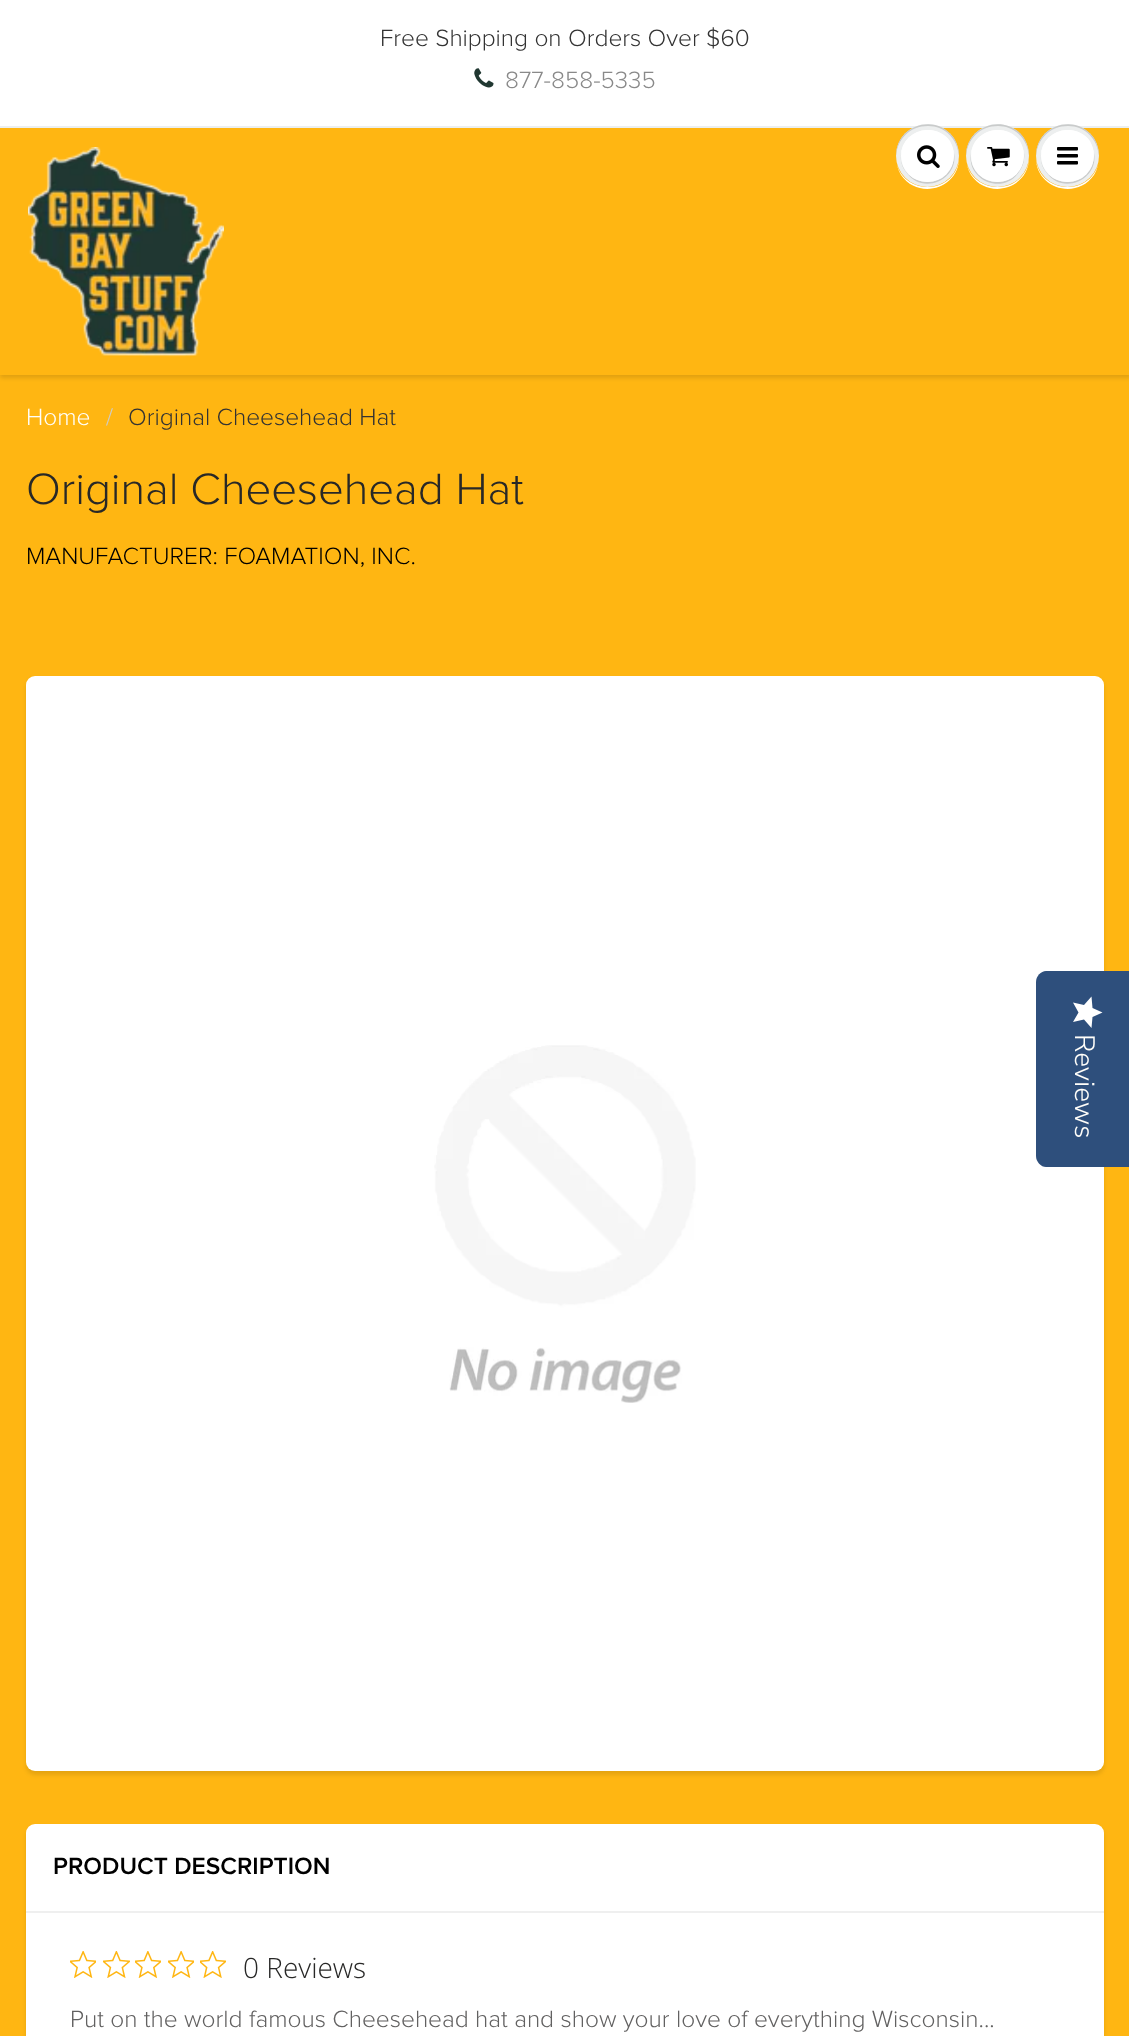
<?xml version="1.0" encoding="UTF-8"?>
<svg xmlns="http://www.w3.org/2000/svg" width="1129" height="2036">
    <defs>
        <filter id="blur1" x="-50%" y="-200%" width="200%" height="500%"><feGaussianBlur stdDeviation="2"/></filter>
        <linearGradient id="g1" gradientUnits="userSpaceOnUse" x1="1103" y1="997" x2="1103" y2="1028"><stop offset="1" stop-color="#FFFFFF"/><stop offset="1" stop-color="#EAEAEA"/></linearGradient>
    </defs>
    <rect width="100%" height="100%" fill="#FFFFFF"/>
    <text x="380" y="46" font-family="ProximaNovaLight" font-size="24.5" font-weight="300" fill="#333333">Free Shipping on Orders Over $60</text>
    <image x="474" y="68" width="20" height="20" href="img_01.png"/>
    <text x="505" y="88" font-family="ProximaNovaLight" font-size="24.5" font-weight="300" fill="#898989">877-858-5335</text>
    <rect x="0" y="375" width="1129" height="1661" fill="#FFB612"/>
    <rect x="0" y="130" width="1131" height="248" fill="#0B191C" fill-opacity="0.12" filter="url(#blur1)"/>
    <rect x="0" y="128" width="1129" height="247" fill="#FFB612"/>
    <rect x="0" y="126" width="1129" height="2" fill="#ECEFEF"/>
    <image x="28" y="147" width="196" height="210" href="img_02.png"/>
    <path d="M 896 157 C 896 163 898 170 901 175 C 919 201 960 188 959 157 C 959 174 945 187 928 187 C 910 187 896 174 896 157 Z" fill="#FFFFFF"/>
    <circle cx="927.5" cy="155.5" r="31.5" fill="#EDEFEF"/>
    <path d="M 928 126 C 945 126 958 139 959 157 C 959 150 957 143 954 138 C 936 112 895 125 896 157 C 897 139 910 126 928 126 Z" fill="#C9CBCB"/>
    <path d="M 901 153 C 900 160 902 167 906 172 C 922 196 959 180 954 153 C 954 159 953 165 949 170 C 934 193 898 180 901 153 Z" fill="#C9CBCB"/>
    <rect x="901" y="130" width="53" height="52" rx="26" fill="#FFFFFF"/>
    <path d="M 928 131 C 942 131 953 142 954 157 C 954 152 953 146 950 141 C 935 120 900 131 901 157 C 902 142 913 131 928 131 Z" fill="#FFFFFF"/>
    <image x="917" y="145" width="23" height="23" href="img_03.png"/>
    <path d="M 966 157 C 966 163 968 170 971 175 C 989 201 1030 188 1029 157 C 1029 174 1015 187 998 187 C 980 187 966 174 966 157 Z" fill="#FFFFFF"/>
    <circle cx="997.5" cy="155.5" r="31.5" fill="#EDEFEF"/>
    <path d="M 998 126 C 1015 126 1028 139 1029 157 C 1029 150 1027 143 1024 138 C 1006 112 965 125 966 157 C 967 139 980 126 998 126 Z" fill="#C9CBCB"/>
    <path d="M 971 153 C 966 180 1003 196 1019 172 C 1023 167 1025 160 1024 153 C 1024 159 1023 165 1019 170 C 1004 193 968 180 971 153 Z" fill="#C9CBCB"/>
    <rect x="971" y="130" width="53" height="52" rx="26" fill="#FFFFFF"/>
    <path d="M 998 131 C 1012 131 1023 142 1024 157 C 1024 152 1023 146 1020 141 C 1005 120 970 131 971 157 C 972 142 983 131 998 131 Z" fill="#FFFFFF"/>
    <image x="987" y="147" width="23" height="20" href="img_04.png"/>
    <path d="M 1036 157 C 1035 188 1076 201 1094 175 C 1097 170 1099 163 1099 157 C 1099 174 1085 187 1068 187 C 1050 187 1036 174 1036 157 Z" fill="#FFFFFF"/>
    <circle cx="1067.5" cy="155.5" r="31.5" fill="#EDEFEF"/>
    <path d="M 1068 126 C 1085 126 1098 139 1099 157 C 1099 150 1097 143 1094 138 C 1076 112 1035 125 1036 157 C 1037 139 1050 126 1068 126 Z" fill="#C9CBCB"/>
    <path d="M 1041 153 C 1040 160 1042 167 1046 172 C 1062 196 1099 180 1094 153 C 1094 159 1093 165 1089 170 C 1074 193 1038 180 1041 153 Z" fill="#C9CBCB"/>
    <rect x="1041" y="130" width="53" height="52" rx="26" fill="#FFFFFF"/>
    <path d="M 1068 131 C 1082 131 1093 142 1094 157 C 1094 152 1093 146 1090 141 C 1075 120 1040 131 1041 157 C 1042 142 1053 131 1068 131 Z" fill="#FFFFFF"/>
    <image x="1057" y="147" width="21" height="18" href="img_05.png"/>
    <text x="26" y="425" font-family="ProximaNovaLight" font-size="24.5" font-weight="300" fill="#FFFEFA">Home</text>
    <text x="106" y="425" font-family="ProximaNovaLight" font-size="24.5" font-weight="300" fill="#CCCCCC">/</text>
    <text x="128" y="425" font-family="ProximaNovaLight" font-size="24.5" font-weight="300" fill="#333333">Original Cheesehead Hat</text>
    <text x="26" y="504" font-family="ProximaNovaLight" font-size="45.5" font-weight="300" fill="#282827">Original Cheesehead Hat</text>
    <text x="26" y="564" font-family="ProximaNovaLight" font-size="24.5" font-weight="300" fill="#000000">MANUFACTURER: FOAMATION, INC.</text>
    <rect x="26" y="679" width="1078" height="1096" rx="9" fill="#0B191C" fill-opacity="0.1" filter="url(#blur1)"/>
    <rect x="26" y="676" width="1078" height="1095" rx="9" fill="#FFFFFF"/>
    <image x="434" y="1045" width="262" height="358" href="img_06.png"/>
    <rect x="26" y="1827" width="1078" height="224" rx="9" fill="#0B191C" fill-opacity="0.1" filter="url(#blur1)"/>
    <rect x="26" y="1824" width="1078" height="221" rx="9" fill="#FFFFFF"/>
    <rect x="26" y="1911" width="1078" height="2" fill="#EFEFEF"/>
    <text x="53" y="1874" font-family="ProximaNovaLight" font-size="24.5" font-weight="600" fill="#000000">PRODUCT DESCRIPTION</text>
    <image x="70" y="1951" width="26" height="27" href="img_07.png"/>
    <image x="103" y="1951" width="27" height="27" href="img_08.png"/>
    <image x="135" y="1951" width="26" height="27" href="img_09.png"/>
    <image x="168" y="1951" width="26" height="27" href="img_07.png"/>
    <image x="200" y="1951" width="26" height="27" href="img_10.png"/>
    <text x="243" y="1978" font-family="Open Sans" font-size="28" font-weight="300" fill="#282827">0 Reviews</text>
    <text x="70" y="2027" font-family="ProximaNovaLight" font-size="24.5" font-weight="300" fill="#626161">Put on the world famous Cheesehead hat and show your love of everything Wisconsin...</text>
    <path d="M 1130 971 V 1167 H 1046 C 1041 1167 1036 1162 1036 1156 V 982 C 1036 976 1041 971 1046 971 Z" fill="#2E4F7C"/>
    <path d="M 1078.5 1012.5 L 1073 1022 L 1084 1019.5 L 1091.5 1028 L 1092.5 1017 L 1102.5 1012.5 L 1092.5 1008 L 1091.5 996.5 L 1084 1005 L 1073 1002.5 Z" fill="url(#g1)"/>
    <text x="1075" y="1034" transform="rotate(90 1075 1034)" font-family="Nunito Sans" font-size="28" font-weight="300" fill="#FFFEFA">Reviews</text>
</svg>
